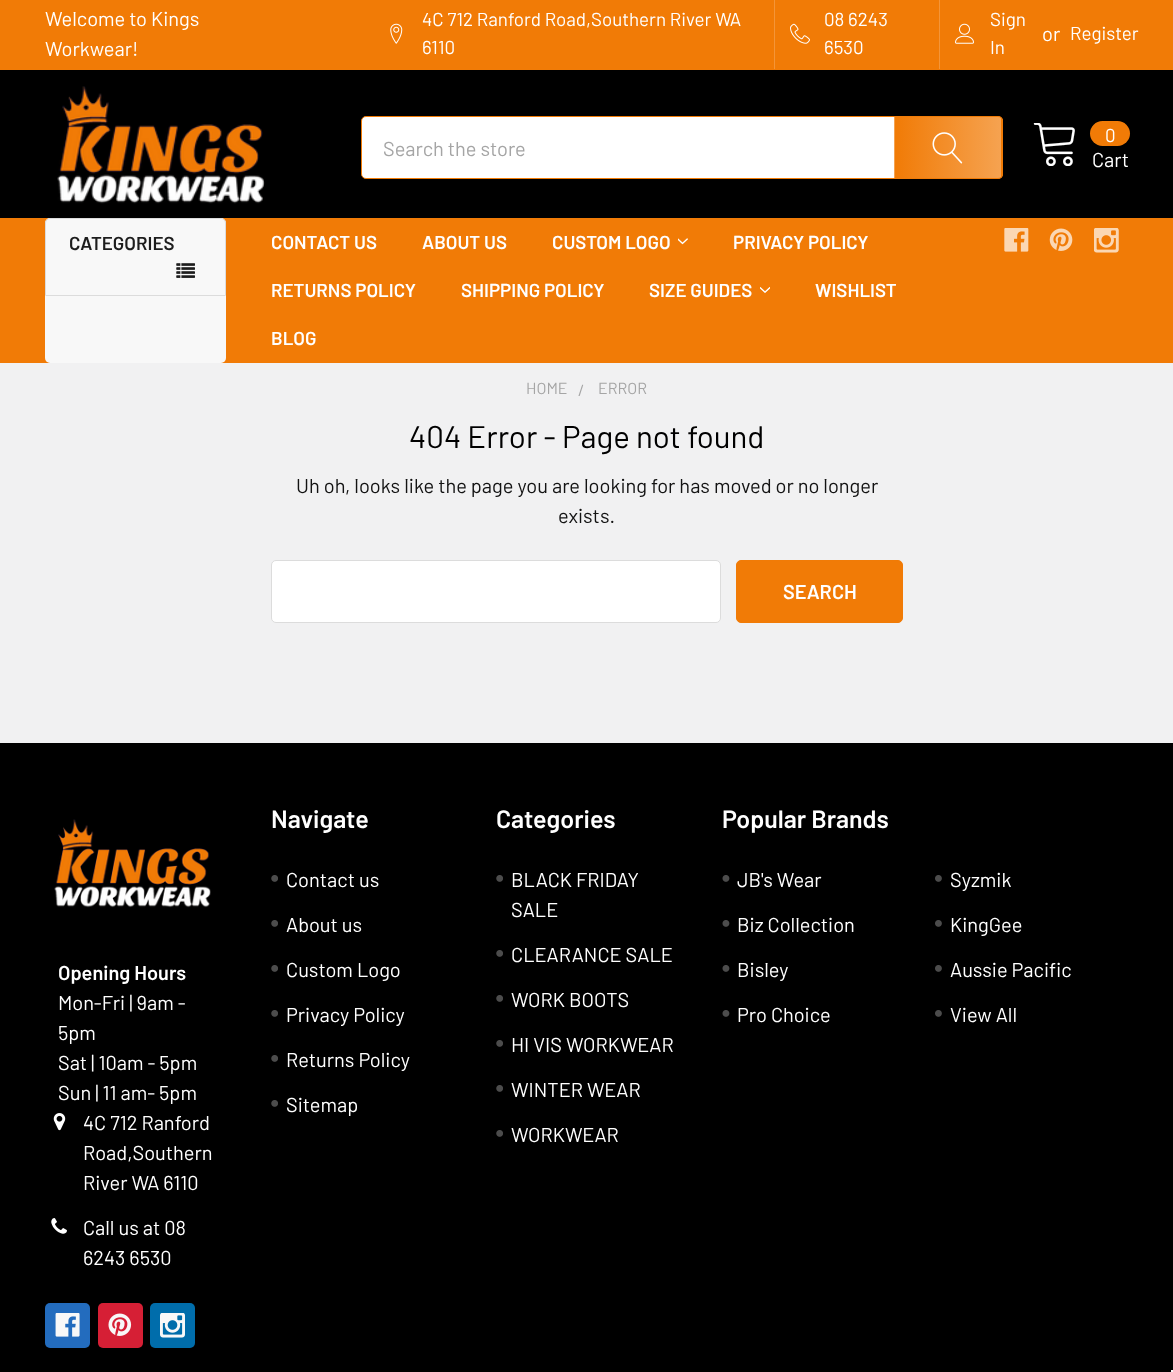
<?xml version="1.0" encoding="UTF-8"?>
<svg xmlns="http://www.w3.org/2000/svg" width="1173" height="1372">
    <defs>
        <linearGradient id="g1" gradientUnits="userSpaceOnUse" x1="789" y1="148" x2="895" y2="148"><stop offset="0" stop-color="#F17B06"/><stop offset="1" stop-color="#F17B06" stop-opacity="0.7"/></linearGradient>
        <clipPath id="clip1"><path d="M 894 116 H 998 C 1001 116 1003 118 1003 121 V 174 C 1003 177 1001 179 998 179 H 894 Z"/></clipPath>
        <linearGradient id="g2" gradientUnits="userSpaceOnUse" x1="895" y1="148" x2="1001" y2="148"><stop offset="0" stop-color="#F17B06"/><stop offset="1" stop-color="#F17B06" stop-opacity="0.7"/></linearGradient>
        <linearGradient id="g3" gradientUnits="userSpaceOnUse" x1="1001" y1="148" x2="1108" y2="148"><stop offset="0" stop-color="#F17B06"/><stop offset="1" stop-color="#F17B06" stop-opacity="0.7"/></linearGradient>
    </defs>
    <rect width="100%" height="100%" fill="#F1F1F2"/>
    <rect x="0" y="70" width="1173" height="148" fill="#000000"/>
    <rect x="0" y="0" width="1173" height="70" fill="#F17B06"/>
    <text font-family="Barlow" font-size="20" fill="#FFFFFF">
        <tspan x="45" y="26">Welcome to Kings</tspan>
        <tspan x="45" y="56">Workwear!</tspan>
    </text>
    <image x="390" y="23" width="13" height="21" href="img_01.png"/>
    <text font-family="Barlow" font-size="18.75" fill="#FFFFFF">
        <tspan x="422" y="26">4C 712 Ranford Road,Southern River WA</tspan>
        <tspan x="422" y="54">6110</tspan>
    </text>
    <rect x="774" y="0" width="1" height="69" fill="#F49538"/>
    <image x="790" y="23" width="20" height="21" href="img_02.png"/>
    <text font-family="Barlow" font-size="18.75" fill="#FFFFFF">
        <tspan x="824" y="26">08 6243</tspan>
        <tspan x="824" y="54">6530</tspan>
    </text>
    <rect x="939" y="0" width="1" height="69" fill="#F49538"/>
    <image x="955" y="23" width="19" height="21" href="img_03.png"/>
    <text font-family="Barlow" font-size="18.75" fill="#FFFFFF">
        <tspan x="990" y="26">Sign</tspan>
        <tspan x="990" y="54">In</tspan>
    </text>
    <text x="1042" y="41" font-family="Barlow" font-size="20" fill="#FFFFFF">or</text>
    <text x="1070" y="40" font-family="Barlow" font-size="18.75" fill="#FFFFFF">Register</text>
    <image x="57" y="86" width="208" height="118" href="img_04.png"/>
    <rect x="361.5" y="116.5" width="641" height="62" rx="4.5" fill="#FFFFFF" stroke="#F17B06"/>
    <text x="383" y="156" font-family="Barlow" font-size="20" fill="#A5A5A5">Search the store</text>
    <rect x="894" y="116" width="1" height="63" fill="url(#g1)"/>
    <g clip-path="url(#clip1)">
        <rect x="895" y="116" width="106" height="63" fill="url(#g2)"/>
        <rect x="1001" y="116" width="2" height="63" fill="url(#g3)"/>
    </g>
    <image x="932" y="132" width="31" height="32" href="img_05.png"/>
    <image x="1033" y="123" width="42" height="43" href="img_06.png"/>
    <rect x="1090" y="121" width="40" height="25" rx="12.5" fill="#F17B06"/>
    <text x="1105" y="142" font-family="Barlow" font-size="18.75" fill="#FFFFFF">0</text>
    <text x="1092" y="167" font-family="Barlow" font-size="20" fill="#FFFFFF">Cart</text>
    <rect x="0" y="218" width="1173" height="145" fill="#F17B06"/>
    <rect x="45" y="218" width="181" height="145" rx="5" fill="#F8F8F8"/>
    <path d="M 50 218.5 H 221 C 223.5 218.5 225.5 220.5 225.5 223 V 295.5 H 45.5 V 223 C 45.5 220.5 47.5 218.5 50 218.5 Z" fill="none" stroke="#DCDCDC"/>
    <text x="69" y="250" font-family="Barlow" font-size="18.75" font-weight="600" fill="#1D1D1D">CATEGORIES</text>
    <image x="176" y="263" width="19" height="15" href="img_07.png"/>
    <text x="271" y="249" font-family="Barlow" font-size="18.75" font-weight="600" fill="#FFFFFF">CONTACT US</text>
    <text x="422" y="249" font-family="Barlow" font-size="18.75" font-weight="600" fill="#FFFFFF">ABOUT US</text>
    <text x="552" y="249" font-family="Barlow" font-size="18.75" font-weight="600" fill="#FFFFFF">CUSTOM LOGO</text>
    <image x="678" y="238" width="10" height="7" href="img_08.png"/>
    <text x="733" y="249" font-family="Barlow" font-size="18.75" font-weight="600" fill="#FFFFFF">PRIVACY POLICY</text>
    <text x="271" y="297" font-family="Barlow" font-size="18.75" font-weight="600" fill="#FFFFFF">RETURNS POLICY</text>
    <text x="461" y="297" font-family="Barlow" font-size="18.75" font-weight="600" fill="#FFFFFF">SHIPPING POLICY</text>
    <text x="649" y="297" font-family="Barlow" font-size="18.75" font-weight="600" fill="#FFFFFF">SIZE GUIDES</text>
    <image x="760" y="287" width="10" height="6" href="img_09.png"/>
    <text x="815" y="297" font-family="Barlow" font-size="18.75" font-weight="600" fill="#FFFFFF">WISHLIST</text>
    <text x="271" y="345" font-family="Barlow" font-size="18.75" font-weight="600" fill="#FFFFFF">BLOG</text>
    <image x="1004" y="228" width="25" height="24" href="img_10.png"/>
    <image x="1049" y="228" width="24" height="23" href="img_11.png"/>
    <image x="1094" y="228" width="25" height="25" href="img_12.png"/>
    <text x="526" y="394" font-family="Barlow" font-size="16" fill="#A5A5A5">HOME</text>
    <text x="578" y="396" font-family="Barlow" font-size="16" fill="#A5A5A5">/</text>
    <text x="598" y="394" font-family="Barlow" font-size="16" fill="#A5A5A5">ERROR</text>
    <text x="409" y="448" font-family="Barlow" font-size="31.25" fill="#000000">404 Error - Page not found</text>
    <text x="296" y="493" font-family="Barlow" font-size="20" fill="#131313">Uh oh, looks like the page you are looking for has moved or no longer</text>
    <text x="558" y="523" font-family="Barlow" font-size="20" fill="#131313">exists.</text>
    <rect x="271.5" y="560.5" width="449" height="62" rx="4.5" fill="#FFFFFF" stroke="#DCDCDC"/>
    <rect x="736.5" y="560.5" width="166" height="62" rx="4.5" fill="#F17B06" stroke="#F17B06"/>
    <text x="783" y="599" font-family="Barlow" font-size="20" font-weight="600" fill="#FFFFFF">SEARCH</text>
    <rect x="0" y="743" width="1173" height="629" fill="#000000"/>
    <text x="271" y="828" font-family="Barlow" font-size="25" font-weight="600" fill="#FFFFFF">Navigate</text>
    <image x="271" y="875" width="7" height="7" href="img_13.png"/>
    <text x="286" y="887" font-family="Barlow" font-size="20" fill="#FFFFFF">Contact us</text>
    <image x="271" y="920" width="7" height="7" href="img_13.png"/>
    <text x="286" y="932" font-family="Barlow" font-size="20" fill="#FFFFFF">About us</text>
    <image x="271" y="965" width="7" height="7" href="img_13.png"/>
    <text x="286" y="977" font-family="Barlow" font-size="20" fill="#FFFFFF">Custom Logo</text>
    <image x="271" y="1010" width="7" height="7" href="img_13.png"/>
    <text x="286" y="1022" font-family="Barlow" font-size="20" fill="#FFFFFF">Privacy Policy</text>
    <image x="271" y="1055" width="7" height="7" href="img_13.png"/>
    <text x="286" y="1067" font-family="Barlow" font-size="20" fill="#FFFFFF">Returns Policy</text>
    <image x="271" y="1100" width="7" height="7" href="img_13.png"/>
    <text x="286" y="1112" font-family="Barlow" font-size="20" fill="#FFFFFF">Sitemap</text>
    <text x="496" y="828" font-family="Barlow" font-size="25" font-weight="600" fill="#FFFFFF">Categories</text>
    <image x="496" y="875" width="7" height="7" href="img_13.png"/>
    <text font-family="Barlow" font-size="20" fill="#FFFFFF">
        <tspan x="511" y="887">BLACK FRIDAY</tspan>
        <tspan x="511" y="917">SALE</tspan>
    </text>
    <image x="496" y="950" width="7" height="7" href="img_13.png"/>
    <text x="511" y="962" font-family="Barlow" font-size="20" fill="#FFFFFF">CLEARANCE SALE</text>
    <image x="496" y="995" width="7" height="7" href="img_13.png"/>
    <text x="511" y="1007" font-family="Barlow" font-size="20" fill="#FFFFFF">WORK BOOTS</text>
    <image x="496" y="1040" width="7" height="7" href="img_13.png"/>
    <text x="511" y="1052" font-family="Barlow" font-size="20" fill="#FFFFFF">HI VIS WORKWEAR</text>
    <image x="496" y="1085" width="7" height="7" href="img_13.png"/>
    <text x="511" y="1097" font-family="Barlow" font-size="20" fill="#FFFFFF">WINTER WEAR</text>
    <image x="496" y="1130" width="7" height="7" href="img_13.png"/>
    <text x="511" y="1142" font-family="Barlow" font-size="20" fill="#FFFFFF">WORKWEAR</text>
    <text x="722" y="828" font-family="Barlow" font-size="25" font-weight="600" fill="#FFFFFF">Popular Brands</text>
    <image x="722" y="875" width="8" height="7" href="img_14.png"/>
    <text x="737" y="887" font-family="Barlow" font-size="20" fill="#FFFFFF">JB's Wear</text>
    <image x="935" y="875" width="7" height="7" href="img_15.png"/>
    <text x="950" y="887" font-family="Barlow" font-size="20" fill="#FFFFFF">Syzmik</text>
    <image x="722" y="920" width="8" height="7" href="img_14.png"/>
    <text x="737" y="932" font-family="Barlow" font-size="20" fill="#FFFFFF">Biz Collection</text>
    <image x="935" y="920" width="7" height="7" href="img_15.png"/>
    <text x="950" y="932" font-family="Barlow" font-size="20" fill="#FFFFFF">KingGee</text>
    <image x="722" y="965" width="8" height="7" href="img_14.png"/>
    <text x="737" y="977" font-family="Barlow" font-size="20" fill="#FFFFFF">Bisley</text>
    <image x="935" y="965" width="7" height="7" href="img_15.png"/>
    <text x="950" y="977" font-family="Barlow" font-size="20" fill="#FFFFFF">Aussie Pacific</text>
    <image x="722" y="1010" width="8" height="7" href="img_14.png"/>
    <text x="737" y="1022" font-family="Barlow" font-size="20" fill="#FFFFFF">Pro Choice</text>
    <image x="935" y="1010" width="7" height="7" href="img_15.png"/>
    <text x="950" y="1022" font-family="Barlow" font-size="20" fill="#FFFFFF">View All</text>
    <image x="54" y="819" width="157" height="89" href="img_16.png"/>
    <text x="58" y="980" font-family="Barlow" font-size="20" font-weight="600" fill="#FFFFFF">Opening Hours</text>
    <text font-family="Barlow" font-size="20" fill="#FFFFFF">
        <tspan x="58" y="1010">Mon-Fri | 9am -</tspan>
        <tspan x="58" y="1040">5pm</tspan>
        <tspan x="58" y="1070">Sat | 10am - 5pm</tspan>
        <tspan x="58" y="1100">Sun | 11 am- 5pm</tspan>
    </text>
    <image x="53" y="1113" width="13" height="18" href="img_17.png"/>
    <text font-family="Barlow" font-size="20" fill="#FFFFFF">
        <tspan x="83" y="1130">4C 712 Ranford</tspan>
        <tspan x="83" y="1160">Road,Southern</tspan>
        <tspan x="83" y="1190">River WA 6110</tspan>
    </text>
    <image x="51" y="1218" width="16" height="16" href="img_18.png"/>
    <text font-family="Barlow" font-size="20" fill="#FFFFFF">
        <tspan x="83" y="1235">Call us at 08</tspan>
        <tspan x="83" y="1265">6243 6530</tspan>
    </text>
    <rect x="45" y="1303" width="45" height="45" rx="5" fill="#236CBE"/>
    <image x="55" y="1313" width="25" height="24" href="img_19.png"/>
    <rect x="98" y="1303" width="45" height="45" rx="5" fill="#D61F35"/>
    <image x="108" y="1313" width="24" height="23" href="img_20.png"/>
    <rect x="150" y="1303" width="45" height="45" rx="5" fill="#006DAB"/>
    <image x="160" y="1313" width="25" height="25" href="img_21.png"/>
    <rect x="1171" y="1370" width="2" height="2" fill="#F5F5F5"/>
</svg>
